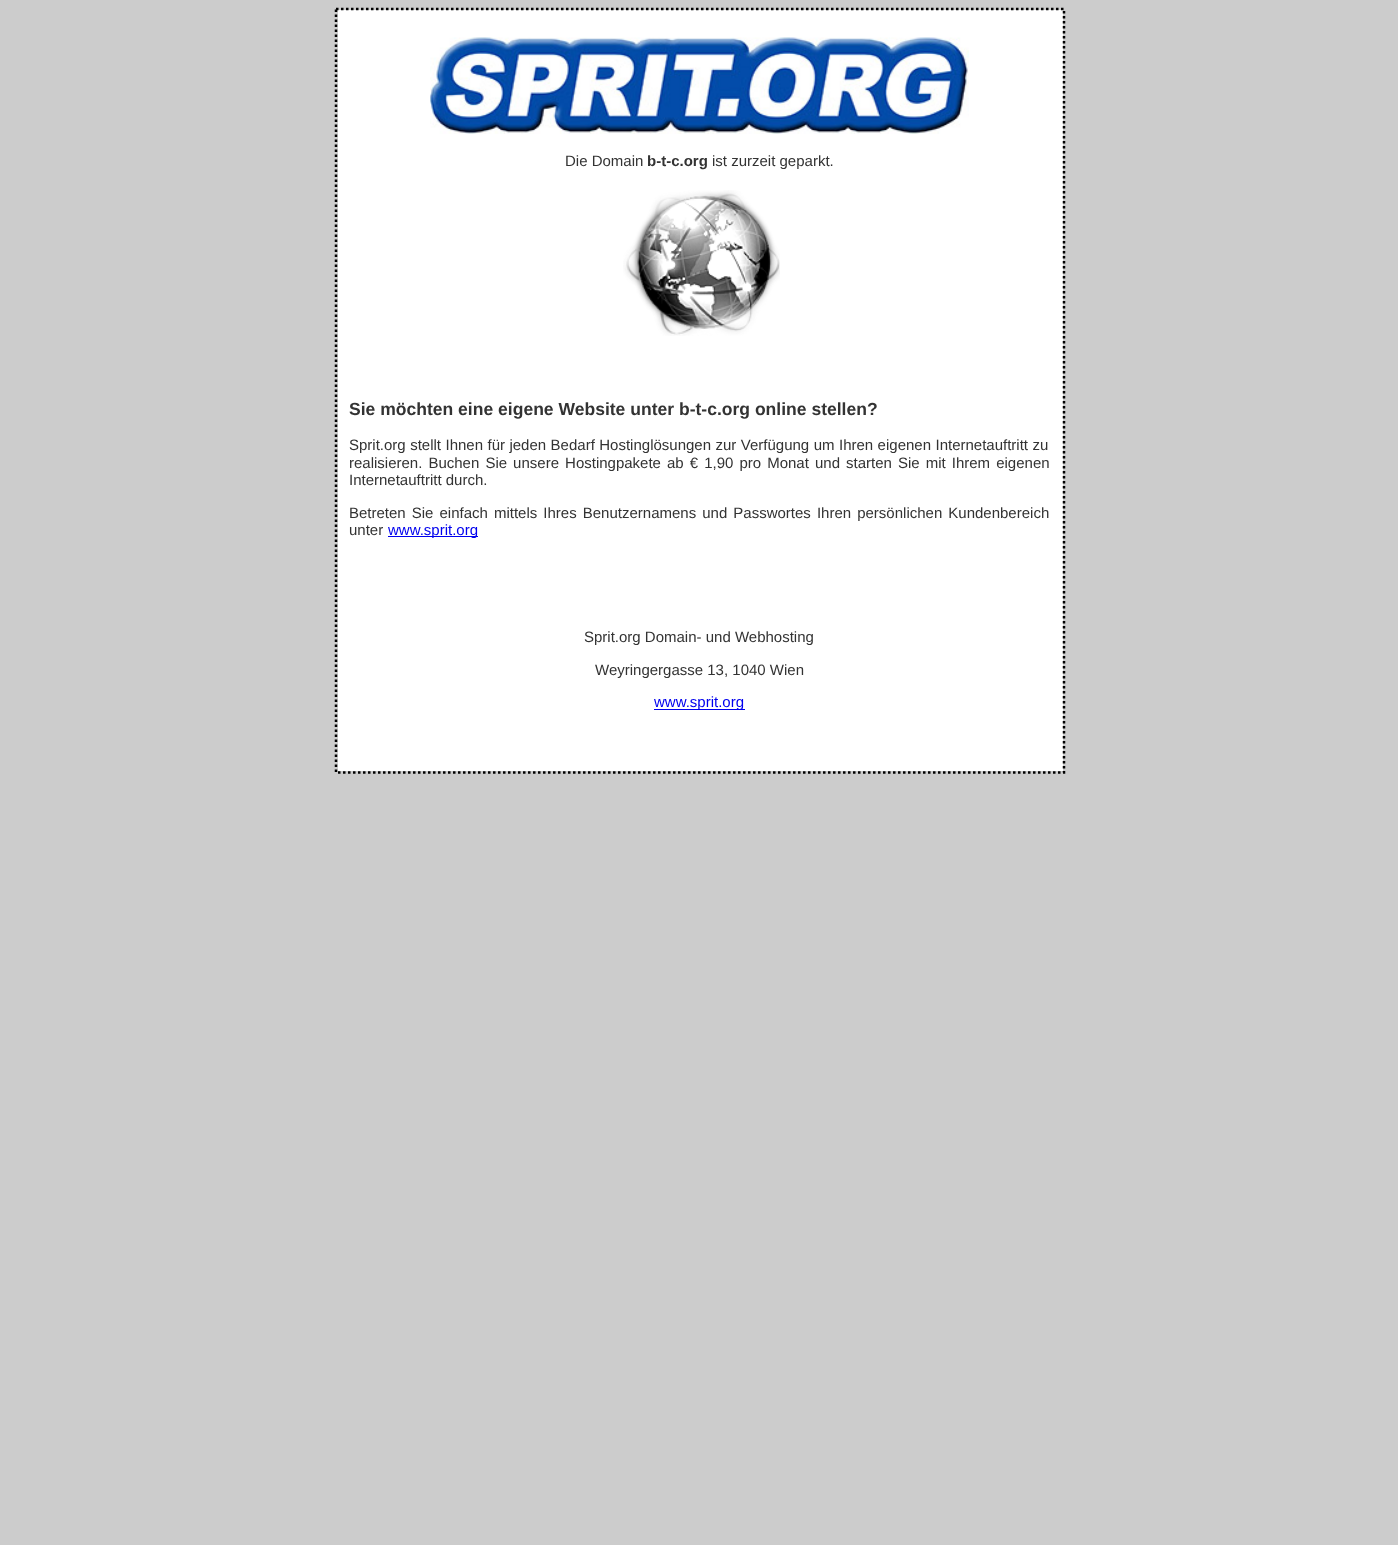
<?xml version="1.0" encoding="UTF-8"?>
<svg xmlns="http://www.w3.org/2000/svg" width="1398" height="1545">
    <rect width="100%" height="100%" fill="#CCCCCC"/>
    <rect x="338" y="10" width="725" height="761" fill="#FFFFFF"/>
    <image x="430" y="37" width="539" height="97" href="img_01.png"/>
    <text x="565" y="166" font-family="Liberation Sans" font-size="15" fill="#333333">Die Domain</text>
    <text x="647" y="166" font-family="Liberation Sans" font-size="15" font-weight="700" fill="#333333">b-t-c.org</text>
    <text x="712" y="166" font-family="Liberation Sans" font-size="15" fill="#333333">ist zurzeit geparkt.</text>
    <image x="623" y="190" width="157" height="146" href="img_02.png"/>
    <text x="349" y="415" font-family="Liberation Sans" font-size="17.55" font-weight="700" fill="#333333">Sie möchten eine eigene Website unter b-t-c.org online stellen?</text>
    <text font-family="Liberation Sans" font-size="15" fill="#333333">
        <tspan x="349" y="450" word-spacing="0.3">Sprit.org stellt Ihnen für jeden Bedarf Hostinglösungen zur Verfügung um Ihren eigenen Internetauftritt zu</tspan>
        <tspan x="349" y="468" word-spacing="1.9">realisieren. Buchen Sie unsere Hostingpakete ab € 1,90 pro Monat und starten Sie mit Ihrem eigenen</tspan>
        <tspan x="349" y="485">Internetauftritt durch.</tspan>
    </text>
    <text font-family="Liberation Sans" font-size="15" fill="#333333">
        <tspan x="349" y="518" word-spacing="1.9">Betreten Sie einfach mittels Ihres Benutzernamens und Passwortes Ihren persönlichen Kundenbereich</tspan>
        <tspan x="349" y="535">unter</tspan>
    </text>
    <rect x="388" y="536" width="90" height="1" fill="#0000EE"/>
    <text x="388" y="535" font-family="Liberation Sans" font-size="15" fill="#0000EE">www.sprit.org</text>
    <text x="584" y="642" font-family="Liberation Sans" font-size="15" fill="#333333">Sprit.org Domain- und Webhosting</text>
    <text x="595" y="675" font-family="Liberation Sans" font-size="15" fill="#333333">Weyringergasse 13, 1040 Wien</text>
    <rect x="654" y="709" width="91" height="1" fill="#0000EE"/>
    <text x="654" y="707" font-family="Liberation Sans" font-size="15" fill="#0000EE">www.sprit.org</text>
    <path d="M 336 9 H 1064 V 772.5 H 336 Z" fill="none" stroke="#000000" stroke-width="2.5" stroke-dasharray="2.5 2.5"/>
</svg>
